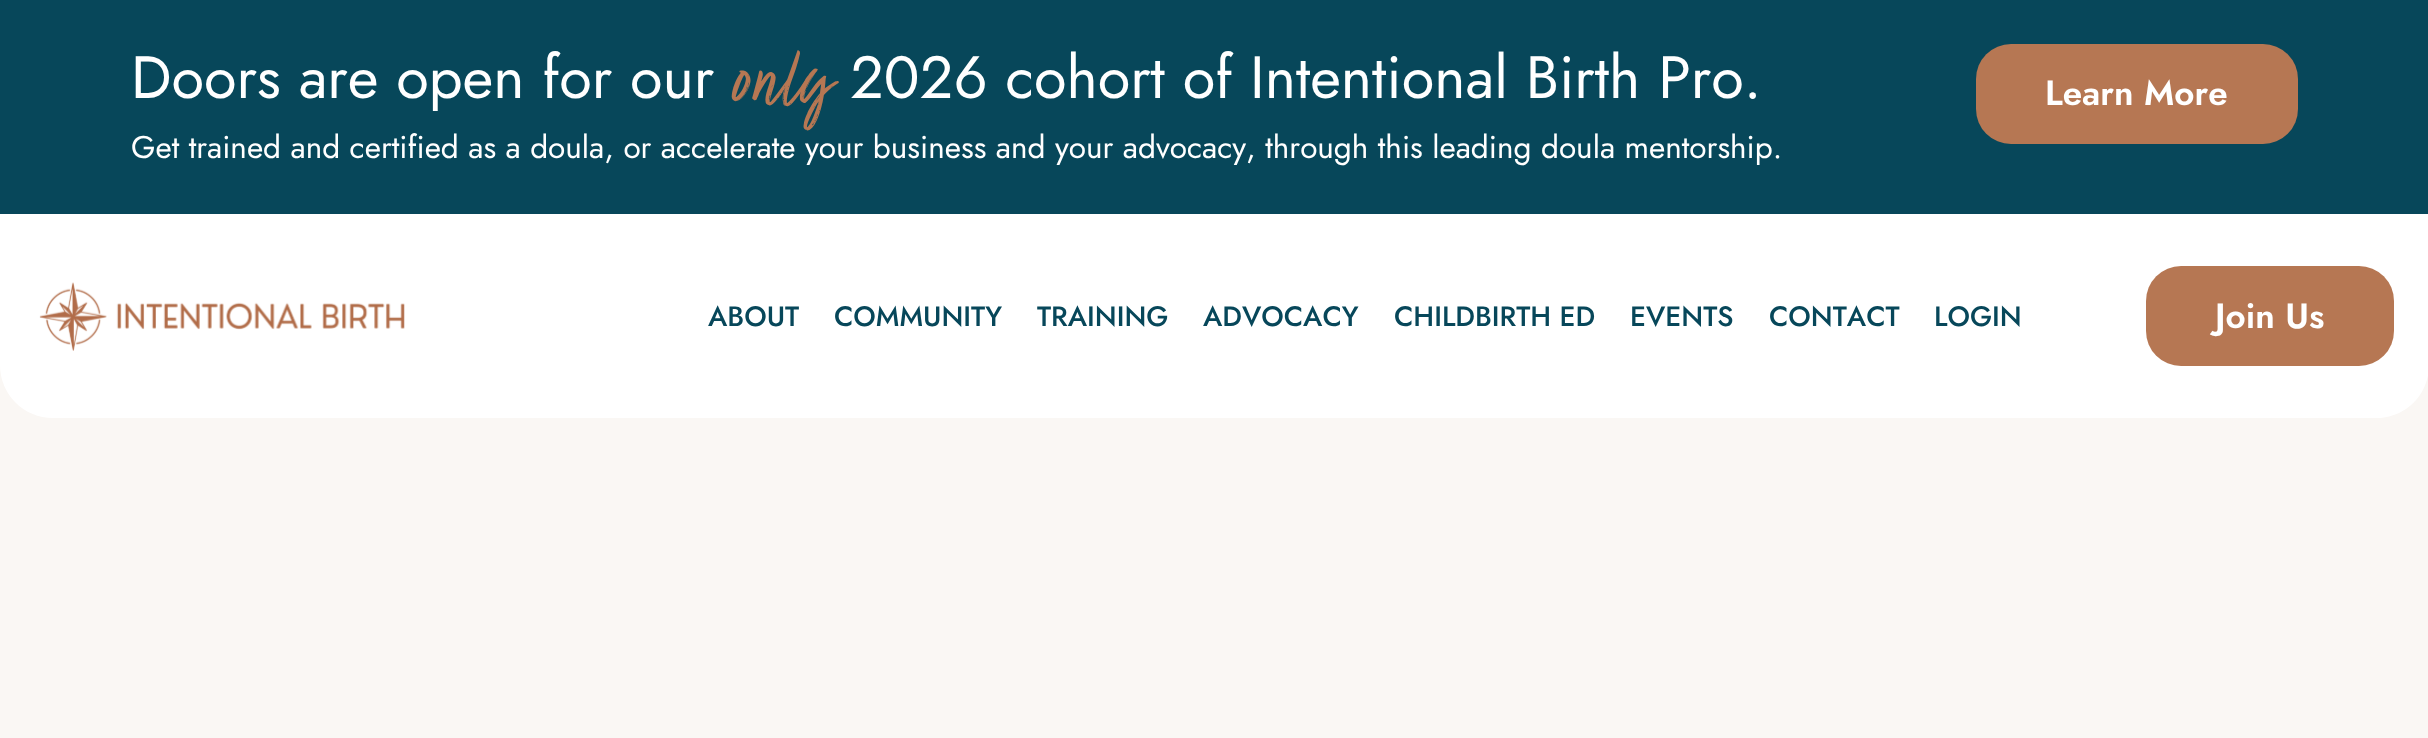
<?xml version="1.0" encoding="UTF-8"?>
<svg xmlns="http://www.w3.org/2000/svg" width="2428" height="738">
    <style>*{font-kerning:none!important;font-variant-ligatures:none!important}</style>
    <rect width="100%" height="100%" fill="#FAF7F4"/>
    <rect x="0" y="0" width="2428" height="214" fill="#07475A"/>
    <text x="131" y="98" font-family="Jost" font-size="59.5" fill="#FFFFFF">Doors are open for our</text>
    <text x="732" y="112" font-family="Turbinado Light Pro" font-size="98" font-weight="300" fill="#B67753">only</text>
    <text x="850" y="98" font-family="Jost" font-size="59.5" fill="#FFFFFF">2026 cohort of Intentional Birth Pro.</text>
    <text x="131" y="158" font-family="Jost" font-size="31.5" fill="#FFFFFF">Get trained and certified as a doula, or accelerate your business and your advocacy, through this leading doula mentorship.</text>
    <rect x="1976" y="44" width="322" height="100" rx="35" fill="#B67753"/>
    <text x="2045" y="105" font-family="Jost" font-size="35" font-weight="600" fill="#FFFFFF">Learn More</text>
    <path d="M 0 214 H 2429 V 365 C 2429 394.5 2405.5 418 2376 418 H 53 C 23.5 418 0 394.5 0 365 Z" fill="#FFFFFF"/>
    <image x="39" y="282" width="366" height="69" href="img_01.png"/>
    <text x="708" y="326" font-family="Jost" font-size="28" font-weight="500" fill="#07475A">ABOUT</text>
    <text x="834" y="326" font-family="Jost" font-size="28" font-weight="500" fill="#07475A">COMMUNITY</text>
    <text x="1037" y="326" font-family="Jost" font-size="28" font-weight="500" fill="#07475A">TRAINING</text>
    <text x="1203" y="326" font-family="Jost" font-size="28" font-weight="500" fill="#07475A">ADVOCACY</text>
    <text x="1394" y="326" font-family="Jost" font-size="28" font-weight="500" fill="#07475A">CHILDBIRTH ED</text>
    <text x="1630" y="326" font-family="Jost" font-size="28" font-weight="500" fill="#07475A">EVENTS</text>
    <text x="1769" y="326" font-family="Jost" font-size="28" font-weight="500" fill="#07475A">CONTACT</text>
    <text x="1934" y="326" font-family="Jost" font-size="28" font-weight="500" fill="#07475A">LOGIN</text>
    <rect x="2146" y="266" width="248" height="100" rx="35" fill="#B67753"/>
    <text x="2215" y="328" font-family="Jost" font-size="35" font-weight="600" fill="#FFFFFF">Join Us</text>
</svg>
